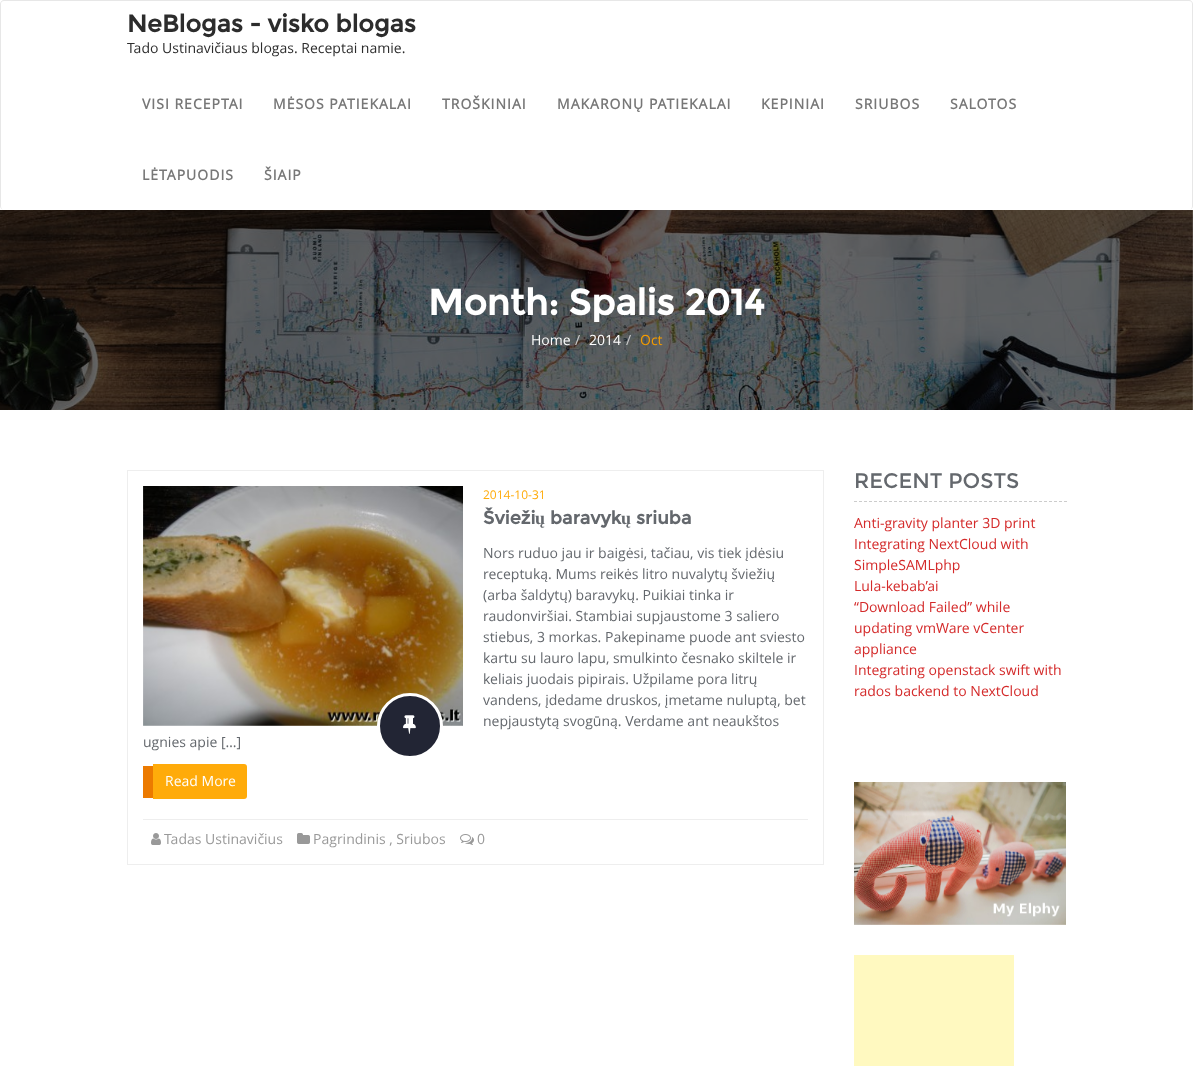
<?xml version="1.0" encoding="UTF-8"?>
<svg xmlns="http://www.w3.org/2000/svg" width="1193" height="1066">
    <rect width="100%" height="100%" fill="#FFFFFF"/>
    <path d="M 4 0 H 1189 C 1191 0 1193 2 1193 4 V 206 C 1193 208 1191 210 1189 210 H 4 C 2 210 0 208 0 206 V 4 C 0 2 2 0 4 0 Z M 4 1 H 1189 C 1191 1 1192 2 1192 4 V 206 C 1192 208 1191 210 1189 210 H 4 C 2 210 1 208 1 206 V 4 C 1 2 2 1 4 1 Z" fill="#E7E7E7" fill-rule="evenodd"/>
    <text x="127" y="32" font-family="Montserrat" font-size="24" font-weight="700" fill="#2C2C2C">NeBlogas - visko blogas</text>
    <text x="127" y="53" font-family="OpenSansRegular" font-size="14" fill="#2C2C2C">Tado Ustinavičiaus blogas. Receptai namie.</text>
    <text x="142" y="109" font-family="OpenSansRegular" font-size="14" font-weight="700" letter-spacing="1" fill="#777777">VISI RECEPTAI</text>
    <text x="273" y="109" font-family="OpenSansRegular" font-size="14" font-weight="700" letter-spacing="1" fill="#777777">MĖSOS PATIEKALAI</text>
    <text x="442" y="109" font-family="OpenSansRegular" font-size="14" font-weight="700" letter-spacing="1" fill="#777777">TROŠKINIAI</text>
    <text x="557" y="109" font-family="OpenSansRegular" font-size="14" font-weight="700" letter-spacing="1" fill="#777777">MAKARONŲ PATIEKALAI</text>
    <text x="761" y="109" font-family="OpenSansRegular" font-size="14" font-weight="700" letter-spacing="1" fill="#777777">KEPINIAI</text>
    <text x="855" y="109" font-family="OpenSansRegular" font-size="14" font-weight="700" letter-spacing="1" fill="#777777">SRIUBOS</text>
    <text x="950" y="109" font-family="OpenSansRegular" font-size="14" font-weight="700" letter-spacing="1" fill="#777777">SALOTOS</text>
    <text x="142" y="180" font-family="OpenSansRegular" font-size="14" font-weight="700" letter-spacing="1" fill="#777777">LĖTAPUODIS</text>
    <text x="264" y="180" font-family="OpenSansRegular" font-size="14" font-weight="700" letter-spacing="1" fill="#777777">ŠIAIP</text>
    <image x="0" y="210" width="1193" height="200" href="img_01.png"/>
    <text x="428" y="315" font-family="Montserrat" font-size="36" font-weight="700" fill="#FFFFFF">Month: Spalis 2014</text>
    <text x="531" y="345" font-family="OpenSansRegular" font-size="14" fill="#FFFFFF">Home</text>
    <text x="575" y="345" font-family="OpenSansRegular" font-size="14" fill="#CCCCCC">/</text>
    <text x="589" y="345" font-family="OpenSansRegular" font-size="14" fill="#FFFFFF">2014</text>
    <text x="626" y="345" font-family="OpenSansRegular" font-size="14" fill="#CCCCCC">/</text>
    <text x="640" y="345" font-family="OpenSansRegular" font-size="14" fill="#F49B00">Oct</text>
    <rect x="127.5" y="470.5" width="696" height="394" fill="none" stroke="#EEEEEE"/>
    <image x="143" y="486" width="320" height="240" href="img_02.png"/>
    <circle cx="410" cy="726" r="31.5" fill="#222534" stroke="#FFFFFF" stroke-width="3"/>
    <image x="403" y="715" width="13" height="19" href="img_03.png"/>
    <text x="483" y="499" font-family="OpenSansRegular" font-size="12" fill="#FFAB0A">2014-10-31</text>
    <text x="483" y="524" font-family="Montserrat" font-size="18" font-weight="700" fill="#64686D">Švieži</text>
    <text x="535" y="524" font-family="Liberation Serif" font-size="18" font-weight="700" fill="#64686D">ų</text>
    <text x="550" y="524" font-family="Montserrat" font-size="18" font-weight="700" fill="#64686D">baravyk</text>
    <text x="621" y="524" font-family="Liberation Serif" font-size="18" font-weight="700" fill="#64686D">ų</text>
    <text x="636" y="524" font-family="Montserrat" font-size="18" font-weight="700" fill="#64686D">sriuba</text>
    <text font-family="OpenSansRegular" font-size="14" fill="#64686D">
        <tspan x="483" y="558">Nors ruduo jau ir baigėsi, tačiau, vis tiek įdėsiu</tspan>
        <tspan x="483" y="579">receptuką. Mums reikės litro nuvalytų šviežių</tspan>
        <tspan x="483" y="600">(arba šaldytų) baravykų. Puikiai tinka ir</tspan>
        <tspan x="483" y="621">raudonviršiai. Stambiai supjaustome 3 saliero</tspan>
        <tspan x="483" y="642">stiebus, 3 morkas. Pakepiname puode ant sviesto</tspan>
        <tspan x="483" y="663">kartu su lauro lapu, smulkinto česnako skiltele ir</tspan>
        <tspan x="483" y="684">keliais juodais pipirais. Užpilame pora litrų</tspan>
        <tspan x="483" y="705">vandens, įdedame druskos, įmetame nuluptą, bet</tspan>
        <tspan x="483" y="726">nepjaustytą svogūną. Verdame ant neaukštos</tspan>
    </text>
    <text x="143" y="747" font-family="OpenSansRegular" font-size="14" fill="#64686D">ugnies apie […]</text>
    <path d="M 153 764 H 244 C 246 764 247 765 247 767 V 796 C 247 798 246 799 244 799 H 153 Z" fill="#FFAB0A"/>
    <rect x="143" y="766" width="10" height="32" fill="#EC7A00"/>
    <text x="165" y="786" font-family="OpenSansRegular" font-size="14" fill="#FFFFFF">Read More</text>
    <rect x="143" y="819" width="665" height="1" fill="#EEEEEE"/>
    <image x="151" y="833" width="10" height="12" href="img_04.png"/>
    <text x="164" y="844" font-family="OpenSansRegular" font-size="14" fill="#999999">Tadas Ustinavičius</text>
    <image x="297" y="833" width="13" height="11" href="img_05.png"/>
    <text x="313" y="844" font-family="OpenSansRegular" font-size="14" fill="#999999">Pagrindinis , Sriubos</text>
    <image x="460" y="834" width="14" height="11" href="img_06.png"/>
    <text x="477" y="844" font-family="OpenSansRegular" font-size="14" fill="#999999">0</text>
    <path d="M 854 501.5 H 1067" fill="none" stroke="#CCCCCC" stroke-dasharray="3 2"/>
    <text x="854" y="488" font-family="Montserrat" font-size="21" fill="#64686D">RECENT POSTS</text>
    <text font-family="OpenSansRegular" font-size="14" fill="#D42A2A">
        <tspan x="854" y="528">Anti-gravity planter 3D print</tspan>
        <tspan x="854" y="549">Integrating NextCloud with</tspan>
        <tspan x="854" y="570">SimpleSAMLphp</tspan>
        <tspan x="854" y="591">Lula-kebab’ai</tspan>
        <tspan x="854" y="612">“Download Failed” while</tspan>
        <tspan x="854" y="633">updating vmWare vCenter</tspan>
        <tspan x="854" y="654">appliance</tspan>
        <tspan x="854" y="675">Integrating openstack swift with</tspan>
        <tspan x="854" y="696">rados backend to NextCloud</tspan>
    </text>
    <image x="854" y="782" width="212" height="143" href="img_07.png"/>
    <rect x="854" y="955" width="160" height="111" fill="#FFF9C0"/>
</svg>
